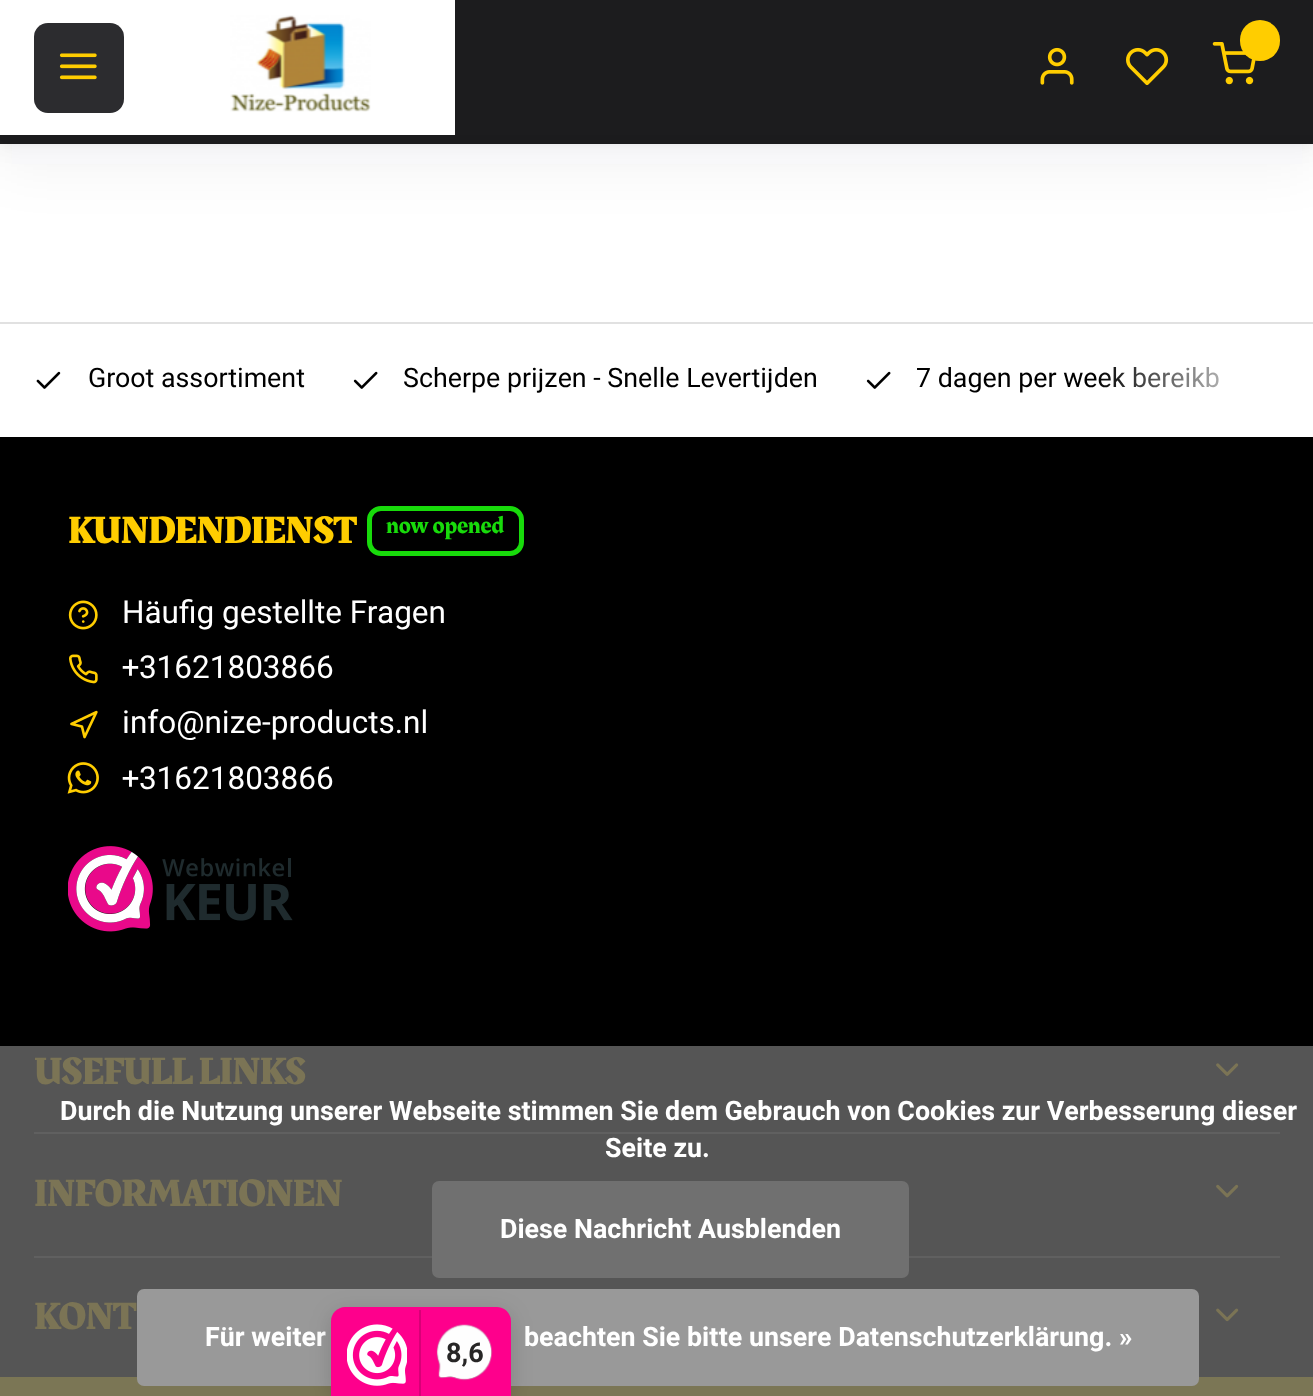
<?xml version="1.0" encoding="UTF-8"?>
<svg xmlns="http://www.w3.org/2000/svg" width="1313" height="1396">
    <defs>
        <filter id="blur1" x="-50%" y="-200%" width="200%" height="500%"><feGaussianBlur stdDeviation="28"/></filter>
        <filter id="blur2" x="-50%" y="-200%" width="200%" height="500%"><feGaussianBlur stdDeviation="11"/></filter>
        <filter id="blur3" x="-50%" y="-200%" width="200%" height="500%"><feGaussianBlur stdDeviation="4.5"/></filter>
        <linearGradient id="g1" gradientUnits="userSpaceOnUse" x1="1094" y1="380" x2="1280" y2="380"><stop offset="0" stop-color="#FFFFFF" stop-opacity="0"/><stop offset="1" stop-color="#FFFFFF"/></linearGradient>
    </defs>
    <rect width="100%" height="100%" fill="#FFFFFF"/>
    <rect x="0" y="23" width="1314" height="144" fill="#000000" fill-opacity="0.05" filter="url(#blur1)"/>
    <rect x="12" y="144" width="1290" height="20" fill="#F9F9FB"/>
    <rect x="0" y="11" width="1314" height="135" fill="#000000" fill-opacity="0.05" filter="url(#blur2)"/>
    <rect x="0" y="135" width="1313" height="9" fill="#1C1C1E"/>
    <rect x="0" y="7" width="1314" height="135" fill="#000000" fill-opacity="0.05" filter="url(#blur3)"/>
    <rect x="455" y="0" width="858" height="135" fill="#1C1C1E"/>
    <rect x="0" y="0" width="455" height="135" fill="#FFFFFF"/>
    <rect x="34" y="23" width="90" height="90" rx="14" fill="#2C2C2F"/>
    <image x="59" y="53" width="38" height="27" href="img_01.png"/>
    <image x="230" y="15" width="141" height="97" href="img_02.png"/>
    <image x="1040" y="47" width="34" height="38" href="img_03.png"/>
    <image x="1126" y="47" width="43" height="39" href="img_04.png"/>
    <image x="1212" y="42" width="44" height="43" href="img_05.png"/>
    <rect x="1240" y="20" width="40" height="41" rx="20" fill="#FFCD00"/>
    <rect x="0" y="322" width="1313" height="2" fill="#E1E1E1"/>
    <image x="36" y="371" width="25" height="18" href="img_06.png"/>
    <text x="88" y="387" font-family="Heebo" font-size="26.8" fill="#000000">Groot assortiment</text>
    <image x="353" y="371" width="25" height="18" href="img_07.png"/>
    <text x="403" y="387" font-family="Heebo" font-size="26.8" fill="#000000">Scherpe prijzen - Snelle Levertijden</text>
    <image x="866" y="371" width="25" height="18" href="img_07.png"/>
    <text x="916" y="387" font-family="Heebo" font-size="26.8" fill="#000000">7 dagen per week bereikb</text>
    <rect x="1099" y="366" width="120" height="22" fill="url(#g1)"/>
    <rect x="0" y="437" width="1313" height="609" fill="#000000"/>
    <rect x="0" y="1046" width="1313" height="331" fill="#555555"/>
    <text x="68" y="543" font-family="Rakkas" font-size="37.75" font-weight="700" fill="#FFCD00">KUNDENDIENST</text>
    <rect x="369.5" y="508.5" width="152" height="45" rx="11.5" fill="none" stroke="#18DB0B" stroke-width="5"/>
    <text x="386" y="533" font-family="Rakkas" font-size="24.5" fill="#18DB0B">now opened</text>
    <image x="68" y="600" width="30" height="30" href="img_08.png"/>
    <text x="122" y="623" font-family="Heebo" font-size="31.5" fill="#FFFFFF">Häufig gestellte Fragen</text>
    <image x="69" y="654" width="29" height="30" href="img_09.png"/>
    <text x="122" y="678" font-family="Heebo" font-size="31.5" fill="#FFFFFF">+31621803866</text>
    <image x="70" y="710" width="28" height="29" href="img_10.png"/>
    <text x="122" y="733" font-family="Heebo" font-size="31.5" fill="#FFFFFF">info@nize-products.nl</text>
    <image x="67" y="762" width="32" height="32" href="img_11.png"/>
    <text x="122" y="789" font-family="Heebo" font-size="31.5" fill="#FFFFFF">+31621803866</text>
    <image x="68" y="846" width="225" height="86" href="img_12.png"/>
    <rect x="34" y="1132" width="1246" height="2" fill="#606060"/>
    <text x="34" y="1084" font-family="Rakkas" font-size="37.75" font-weight="700" fill="#7B7455">USEFULL LINKS</text>
    <image x="1216" y="1063" width="23" height="13" href="img_13.png"/>
    <rect x="34" y="1256" width="1246" height="2" fill="#606060"/>
    <text x="34" y="1206" font-family="Rakkas" font-size="37.75" font-weight="700" fill="#7B7455">INFORMATIONEN</text>
    <image x="1216" y="1184" width="23" height="14" href="img_14.png"/>
    <text x="34" y="1329" font-family="Rakkas" font-size="37.75" font-weight="700" fill="#7B7455">KONT</text>
    <image x="1216" y="1308" width="23" height="14" href="img_15.png"/>
    <rect x="0" y="1377" width="1313" height="19" fill="#7B7655"/>
    <text x="60" y="1120" font-family="Heebo" font-size="26.8" font-weight="700" fill="#FFFFFF">Durch die Nutzung unserer Webseite stimmen Sie dem Gebrauch von Cookies zur Verbesserung dieser</text>
    <text x="605" y="1157" font-family="Heebo" font-size="26.8" font-weight="700" fill="#FFFFFF">Seite zu.</text>
    <rect x="432" y="1181" width="477" height="97" rx="7" fill="#707070"/>
    <text x="500" y="1238" font-family="Heebo" font-size="26.8" font-weight="700" fill="#FFFFFF">Diese Nachricht Ausblenden</text>
    <rect x="137" y="1289" width="1062" height="97" rx="7" fill="#999999"/>
    <text x="205" y="1346" font-family="Heebo" font-size="26.8" font-weight="700" fill="#FFFFFF">Für weiter</text>
    <text x="524" y="1346" font-family="Heebo" font-size="26.8" font-weight="700" fill="#FFFFFF">beachten Sie bitte unsere Datenschutzerklärung. »</text>
    <rect x="331" y="1312" width="180" height="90" rx="14" fill="#000000" fill-opacity="0.15" filter="url(#blur2)"/>
    <path d="M 345 1307 H 497 C 504.5 1307 511 1313.5 511 1321 V 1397 H 331 V 1321 C 331 1313.5 337.5 1307 345 1307 Z" fill="#FE008C"/>
    <image x="347" y="1324" width="60" height="62" href="img_16.png"/>
    <rect x="419" y="1310" width="2" height="86" fill="#D80077"/>
    <image x="436" y="1324" width="57" height="57" href="img_17.png"/>
    <text x="446" y="1362" font-family="Roboto" font-size="27" font-weight="700" fill="#272626">8,6</text>
</svg>
